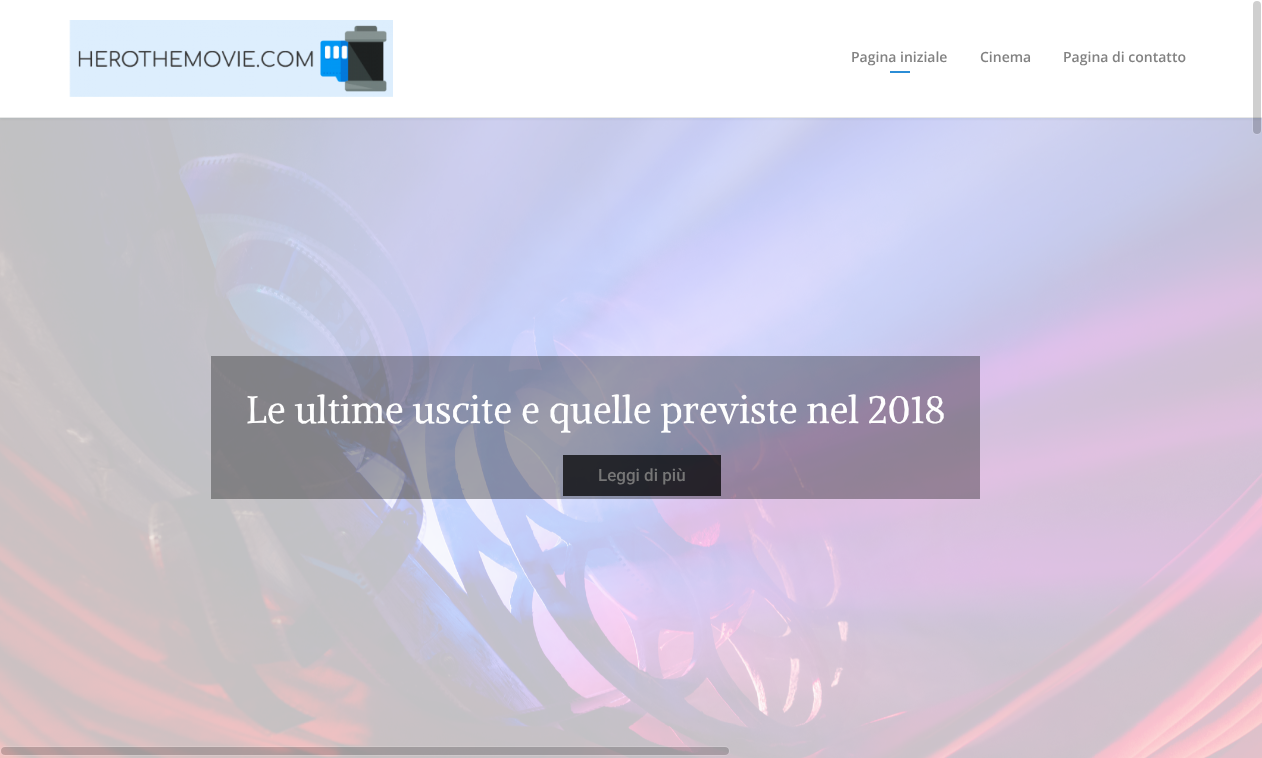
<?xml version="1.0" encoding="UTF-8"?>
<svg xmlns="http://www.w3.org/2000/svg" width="1262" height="758">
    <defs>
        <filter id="blur1" x="-50%" y="-200%" width="200%" height="500%"><feGaussianBlur stdDeviation="1"/></filter>
    </defs>
    <rect width="100%" height="100%" fill="#FBFCFD"/>
    <image x="0" y="118" width="1262" height="640" href="img_02.png"/>
    <rect x="0" y="1" width="1262" height="118" fill="#2B3033" fill-opacity="0.08" filter="url(#blur1)"/>
    <rect x="0" y="0" width="1262" height="117" fill="#FFFFFF"/>
    <rect x="0" y="117" width="1262" height="1" fill="#E7E7E7"/>
    <image x="69" y="20" width="324" height="77" href="img_01.png"/>
    <text x="851" y="62" font-family="Open Sans" font-size="14" font-weight="600" fill="#828282">Pagina iniziale</text>
    <rect x="890" y="71" width="20" height="2" fill="#2B8DD6"/>
    <text x="980" y="62" font-family="Open Sans" font-size="14" font-weight="600" fill="#828282">Cinema</text>
    <text x="1063" y="62" font-family="Open Sans" font-size="14" font-weight="600" fill="#828282">Pagina di contatto</text>
    <rect x="1253" y="1" width="8" height="133" rx="4" fill="#000000" fill-opacity="0.19"/>
    <rect x="1252.5" y="0.5" width="9" height="134" rx="4.5" fill="none" stroke="#FFFFFF" stroke-opacity="0.13"/>
    <rect x="211" y="356" width="769" height="143" fill="#0A0A0A" fill-opacity="0.34"/>
    <text x="246" y="423" font-family="Alike Angular" font-size="38" fill="#FEFEFE">Le ultime uscite e quelle previste nel 2018</text>
    <rect x="563" y="455" width="158" height="41" fill="#000000" fill-opacity="0.74"/>
    <text x="598" y="481" font-family="Roboto" font-size="17" font-weight="500" fill="#767676">Leggi di più</text>
    <rect x="1" y="747" width="728" height="8" rx="4" fill="#000000" fill-opacity="0.19"/>
    <rect x="0.5" y="746.5" width="729" height="9" rx="4.5" fill="none" stroke="#FFFFFF" stroke-opacity="0.13"/>
</svg>
